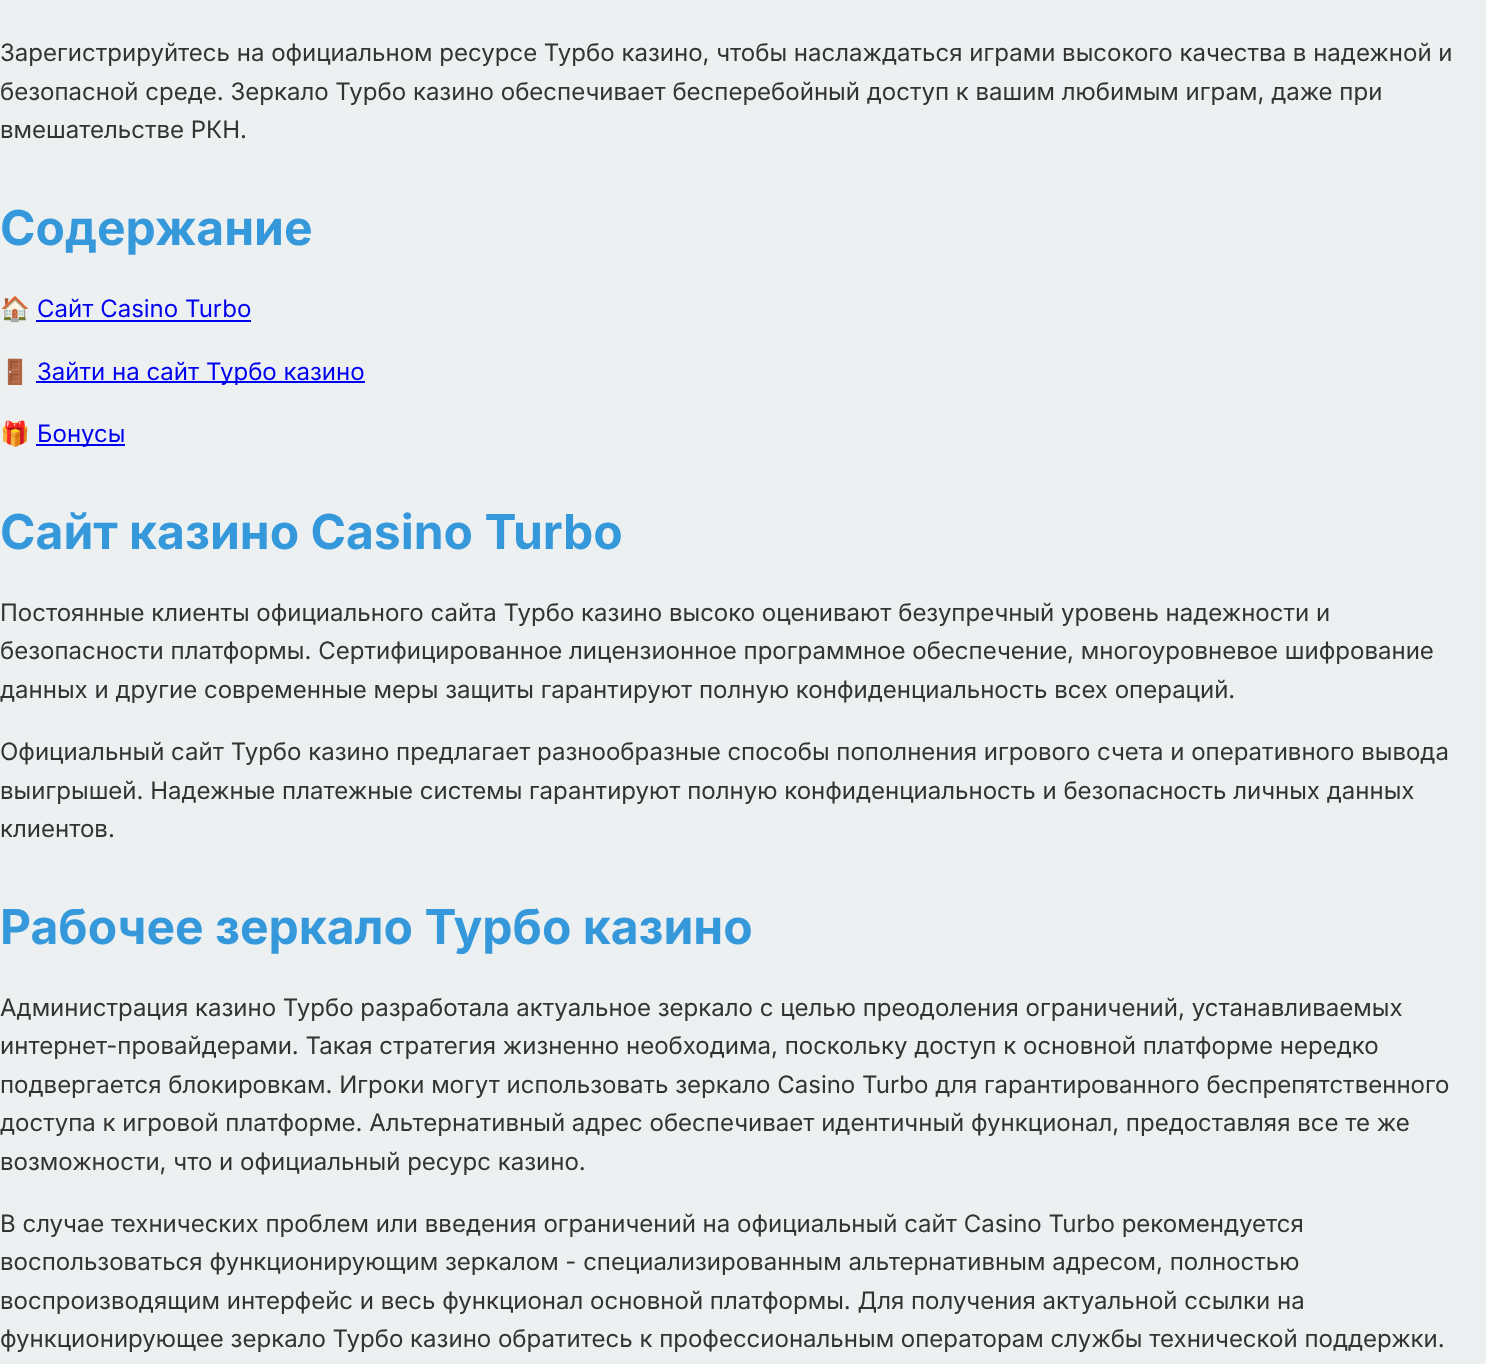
<?xml version="1.0" encoding="UTF-8"?>
<svg xmlns="http://www.w3.org/2000/svg" width="1486" height="1364">
    <rect width="100%" height="100%" fill="#ECF0F1"/>
    <text font-family="Inter" font-size="24" fill="#333333">
        <tspan x="0" y="61">Зарегистрируйтесь на официальном ресурсе Турбо казино, чтобы наслаждаться играми высокого качества в надежной и</tspan>
        <tspan x="0" y="100">безопасной среде. Зеркало Турбо казино обеспечивает бесперебойный доступ к вашим любимым играм, даже при</tspan>
        <tspan x="0" y="138">вмешательстве РКН.</tspan>
    </text>
    <text x="0" y="245" font-family="Inter" font-size="48" font-weight="700" fill="#3498DB">Содержание</text>
    <text x="0" y="317" font-family="Noto Color Emoji" font-size="24" fill="#333333">🏠</text>
    <text x="37" y="317" font-family="Inter" font-size="24" fill="#0000EE">Сайт Casino Turbo</text>
    <rect x="36" y="320" width="215" height="2" fill="#0000EE"/>
    <text x="0" y="380" font-family="Noto Color Emoji" font-size="24" fill="#333333">🚪</text>
    <rect x="36" y="381" width="329" height="2" fill="#0000EE"/>
    <text x="37" y="380" font-family="Inter" font-size="24" fill="#0000EE">Зайти на сайт Турбо казино</text>
    <text x="0" y="442" font-family="Noto Color Emoji" font-size="24" fill="#333333">🎁</text>
    <rect x="36" y="444" width="89" height="2" fill="#0000EE"/>
    <text x="37" y="442" font-family="Inter" font-size="24" fill="#0000EE">Бонусы</text>
    <text x="0" y="549" font-family="Inter" font-size="48" font-weight="700" fill="#3498DB">Сайт казино Casino Turbo</text>
    <text font-family="Inter" font-size="24" fill="#333333">
        <tspan x="0" y="621">Постоянные клиенты официального сайта Турбо казино высоко оценивают безупречный уровень надежности и</tspan>
        <tspan x="0" y="659">безопасности платформы. Сертифицированное лицензионное программное обеспечение, многоуровневое шифрование</tspan>
        <tspan x="0" y="698">данных и другие современные меры защиты гарантируют полную конфиденциальность всех операций.</tspan>
    </text>
    <text font-family="Inter" font-size="24" fill="#333333">
        <tspan x="0" y="760">Официальный сайт Турбо казино предлагает разнообразные способы пополнения игрового счета и оперативного вывода</tspan>
        <tspan x="0" y="799">выигрышей. Надежные платежные системы гарантируют полную конфиденциальность и безопасность личных данных</tspan>
        <tspan x="0" y="837">клиентов.</tspan>
    </text>
    <text x="0" y="944" font-family="Inter" font-size="48" font-weight="700" fill="#3498DB">Рабочее зеркало Турбо казино</text>
    <text font-family="Inter" font-size="24" fill="#333333">
        <tspan x="0" y="1016">Администрация казино Турбо разработала актуальное зеркало с целью преодоления ограничений, устанавливаемых</tspan>
        <tspan x="0" y="1054">интернет-провайдерами. Такая стратегия жизненно необходима, поскольку доступ к основной платформе нередко</tspan>
        <tspan x="0" y="1093">подвергается блокировкам. Игроки могут использовать зеркало Casino Turbo для гарантированного беспрепятственного</tspan>
        <tspan x="0" y="1131">доступа к игровой платформе. Альтернативный адрес обеспечивает идентичный функционал, предоставляя все те же</tspan>
        <tspan x="0" y="1170">возможности, что и официальный ресурс казино.</tspan>
    </text>
    <text font-family="Inter" font-size="24" fill="#333333">
        <tspan x="0" y="1232">В случае технических проблем или введения ограничений на официальный сайт Casino Turbo рекомендуется</tspan>
        <tspan x="0" y="1270">воспользоваться функционирующим зеркалом - специализированным альтернативным адресом, полностью</tspan>
        <tspan x="0" y="1309">воспроизводящим интерфейс и весь функционал основной платформы. Для получения актуальной ссылки на</tspan>
        <tspan x="0" y="1347">функционирующее зеркало Турбо казино обратитесь к профессиональным операторам службы технической поддержки.</tspan>
    </text>
</svg>
